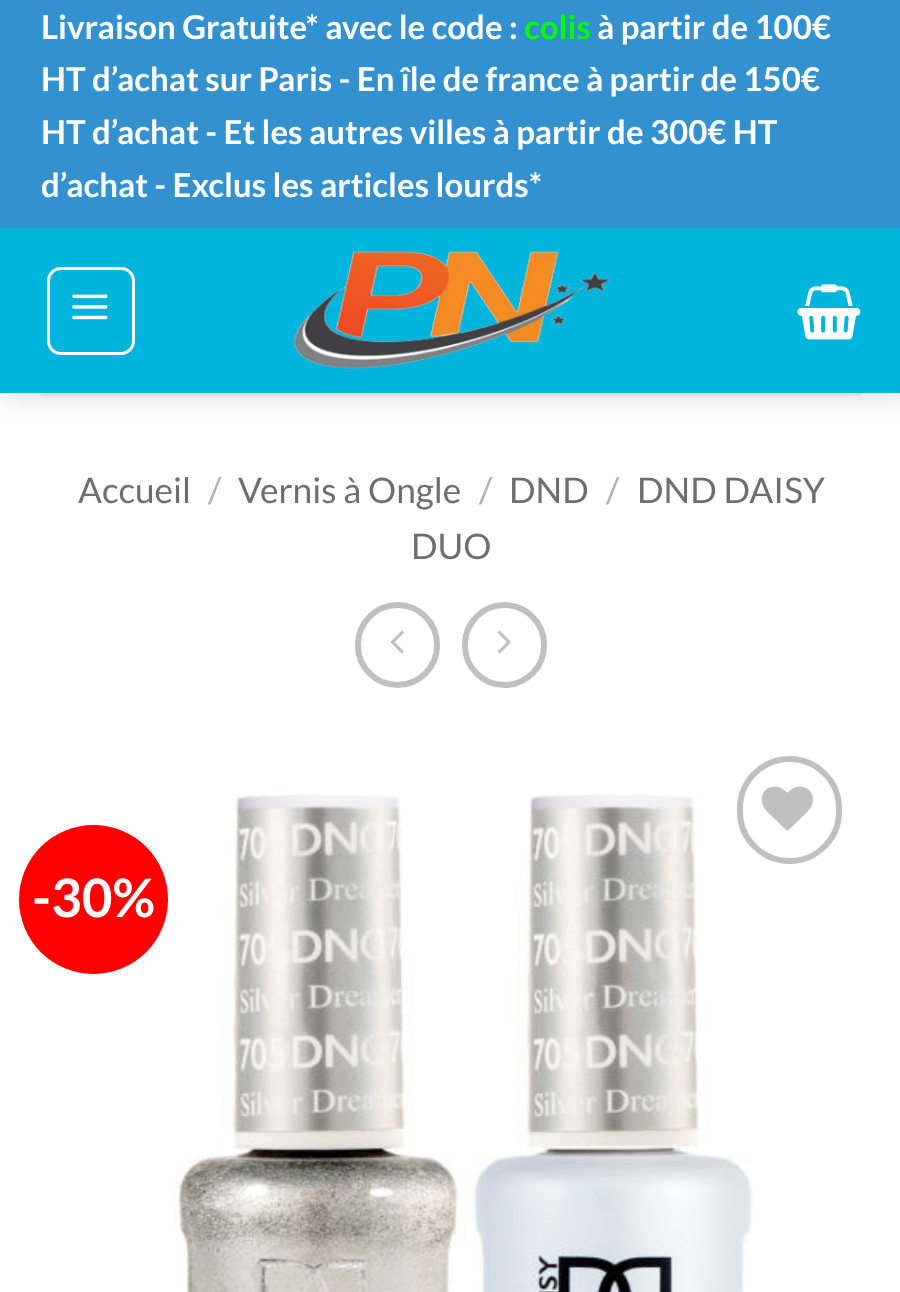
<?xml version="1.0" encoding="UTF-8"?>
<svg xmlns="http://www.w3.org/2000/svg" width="900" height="1292">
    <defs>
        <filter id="blur1" x="-50%" y="-200%" width="200%" height="500%"><feGaussianBlur stdDeviation="14"/></filter>
    </defs>
    <rect width="100%" height="100%" fill="#FFFFFF"/>
    <rect x="3" y="3" width="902" height="393" fill="#000000" fill-opacity="0.15" filter="url(#blur1)"/>
    <rect x="0" y="0" width="900" height="228" fill="#3491CF"/>
    <text x="41" y="39" font-family="Lato" font-size="33" font-weight="700" fill="#FFFFFF">Livraison Gratuite* avec le code :</text>
    <text x="524" y="39" font-family="Lato" font-size="33" font-weight="700" fill="#00FF00">colis</text>
    <text x="597" y="39" font-family="Lato" font-size="33" font-weight="700" fill="#FFFFFF">à partir de 100€</text>
    <text font-family="Lato" font-size="33" font-weight="700" fill="#FFFFFF">
        <tspan x="41" y="91">HT d’achat sur Paris - En île de france à partir de 150€</tspan>
        <tspan x="41" y="144">HT d’achat - Et les autres villes à partir de 300€ HT</tspan>
        <tspan x="41" y="197">d’achat - Exclus les articles lourds*</tspan>
    </text>
    <rect x="0" y="228" width="900" height="165" fill="#00B5DD"/>
    <rect x="48.5" y="268.5" width="85" height="85" rx="12.5" fill="none" stroke="#FFFFFF" stroke-width="3"/>
    <image x="72" y="294" width="36" height="26" href="img_01.png"/>
    <image x="294" y="251" width="317" height="118" href="img_02.png"/>
    <image x="797" y="284" width="64" height="56" href="img_03.png"/>
    <rect x="41" y="393" width="820" height="3" fill="#5E4E4E" fill-opacity="0.1"/>
    <text x="78" y="503" font-family="Lato" font-size="35.25" fill="#6E6E6E">Accueil</text>
    <text x="208" y="503" font-family="Lato" font-size="35.25" fill="#B2B2B2">/</text>
    <text x="238" y="503" font-family="Lato" font-size="35.25" fill="#6E6E6E">Vernis à Ongle</text>
    <text x="479" y="503" font-family="Lato" font-size="35.25" fill="#B2B2B2">/</text>
    <text x="509" y="503" font-family="Lato" font-size="35.25" fill="#6E6E6E">DND</text>
    <text x="606" y="503" font-family="Lato" font-size="35.25" fill="#B2B2B2">/</text>
    <text x="637" y="503" font-family="Lato" font-size="35.25" fill="#6E6E6E">DND DAISY</text>
    <text x="411" y="559" font-family="Lato" font-size="35.25" fill="#6E6E6E">DUO</text>
    <rect x="358" y="605" width="79" height="80" rx="39.5" fill="none" stroke="#C0C0C0" stroke-width="6"/>
    <image x="390" y="630" width="14" height="24" href="img_04.png"/>
    <rect x="465" y="605" width="79" height="80" rx="39.5" fill="none" stroke="#C0C0C0" stroke-width="6"/>
    <image x="497" y="630" width="14" height="24" href="img_05.png"/>
    <circle cx="93.5" cy="899.5" r="74.5" fill="#FF0000"/>
    <text x="32" y="917" font-family="Lato" font-size="53" font-weight="700" fill="#FFFFFF">-30%</text>
    <image x="173" y="794" width="580" height="498" href="img_06.png"/>
    <rect x="740" y="759" width="99" height="102" rx="49.5" fill="none" stroke="#C0C0C0" stroke-width="6"/>
    <image x="761" y="786" width="52" height="45" href="img_07.png"/>
</svg>
